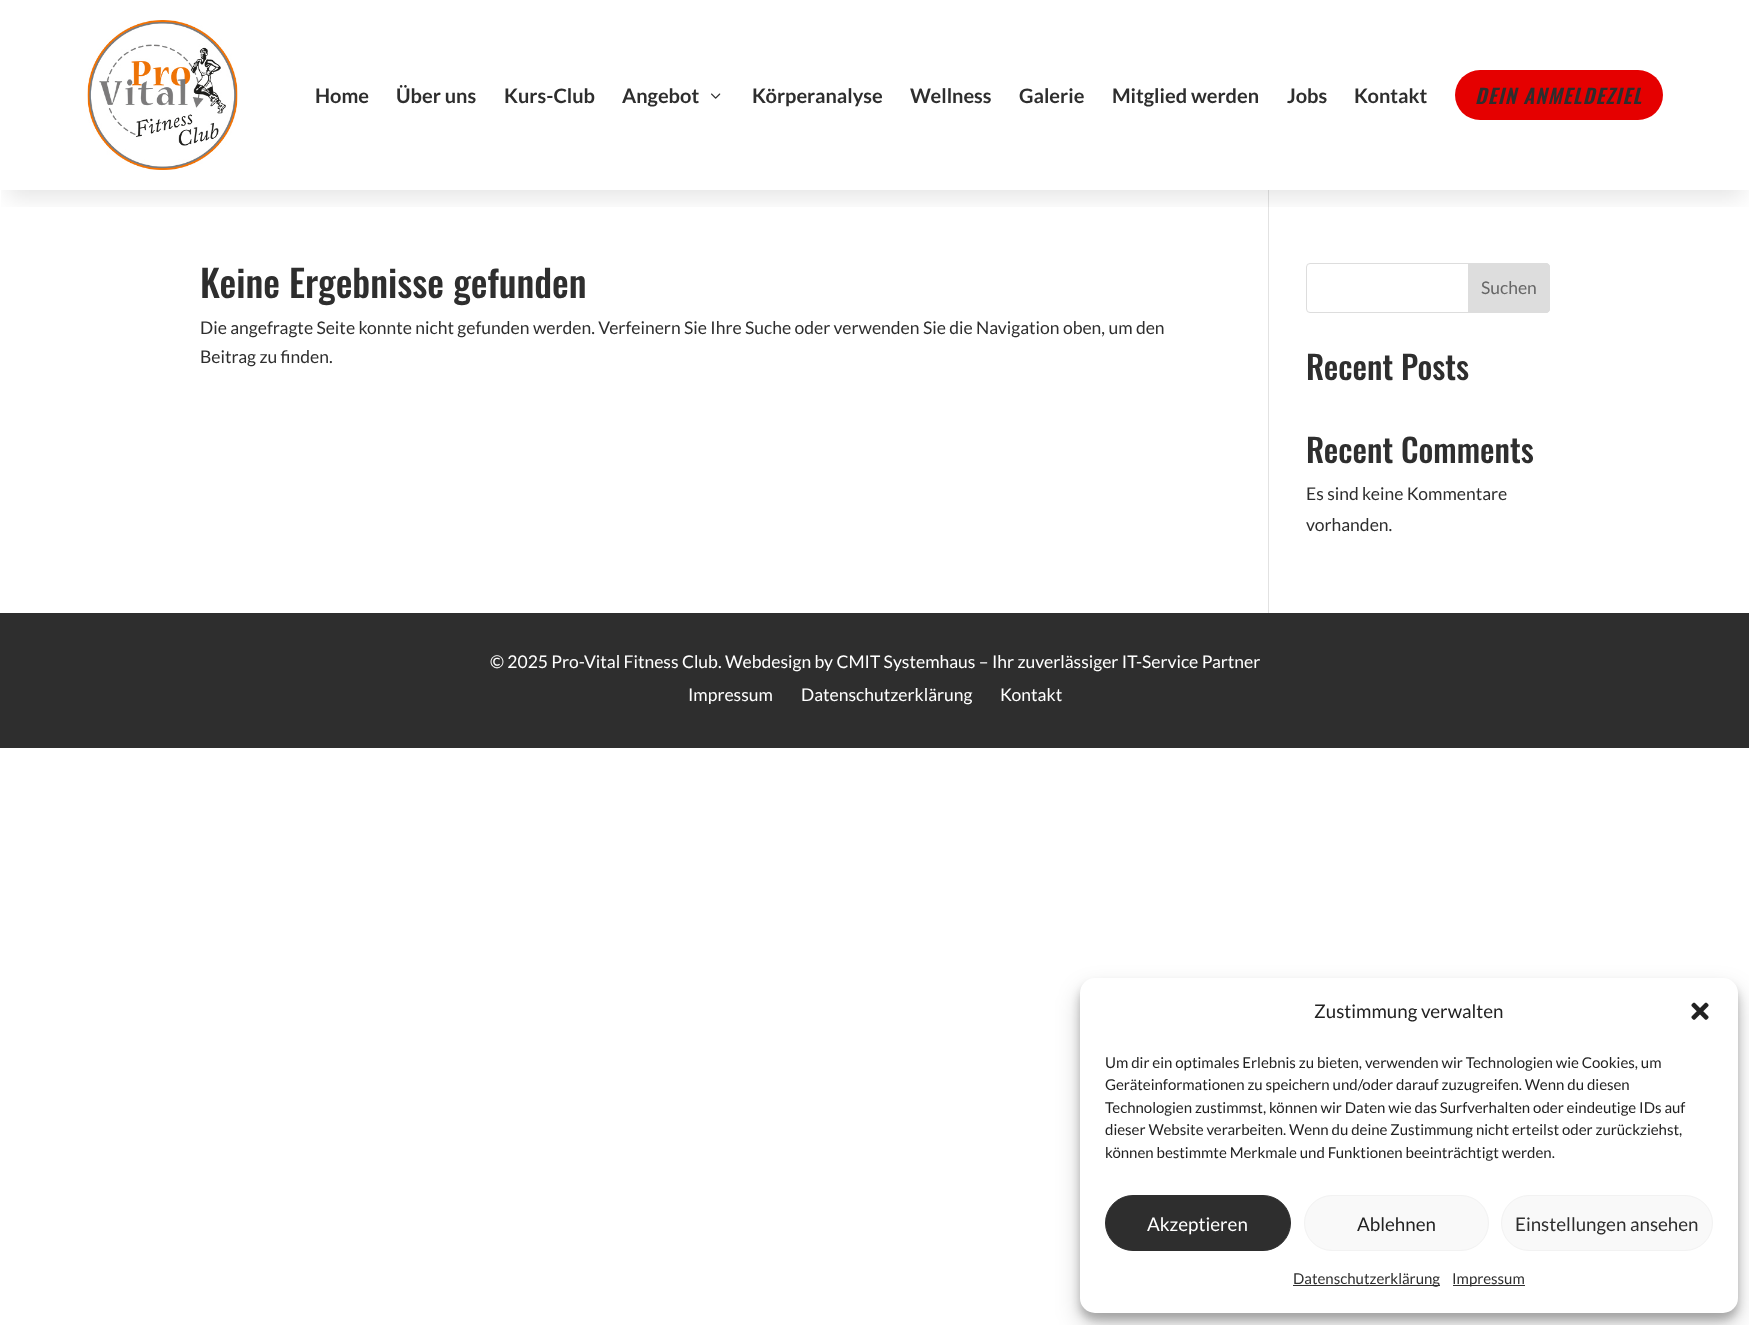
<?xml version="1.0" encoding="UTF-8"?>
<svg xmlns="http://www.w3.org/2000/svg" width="1749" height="1325">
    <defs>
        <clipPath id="clip1"><rect x="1" y="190" width="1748" height="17"/></clipPath>
        <filter id="blur1" x="-50%" y="-200%" width="200%" height="500%"><feGaussianBlur stdDeviation="11"/></filter>
        <filter id="blur2" x="-50%" y="-200%" width="200%" height="500%"><feGaussianBlur stdDeviation="4"/></filter>
        <filter id="blur3" x="-50%" y="-200%" width="200%" height="500%"><feGaussianBlur stdDeviation="12.5"/></filter>
    </defs>
    <rect width="100%" height="100%" fill="#FFFFFF"/>
    <rect x="1268" y="190" width="1" height="423" fill="#E2E2E2"/>
    <g clip-path="url(#clip1)">
        <rect x="8" y="23" width="1735" height="175" fill="#000000" fill-opacity="0.1" filter="url(#blur1)"/>
    </g>
    <image x="87" y="20" width="151" height="150" href="img_01.png"/>
    <text x="315" y="103" font-family="Lato" font-size="20" font-weight="700" fill="#2E2E2E">Home</text>
    <text x="396" y="103" font-family="Lato" font-size="20" font-weight="700" fill="#2E2E2E">Über uns</text>
    <text x="504" y="103" font-family="Lato" font-size="20" font-weight="700" fill="#2E2E2E">Kurs-Club</text>
    <text x="622" y="103" font-family="Lato" font-size="20" font-weight="700" fill="#2E2E2E">Angebot</text>
    <image x="711" y="93" width="10" height="6" href="img_02.png"/>
    <text x="752" y="103" font-family="Lato" font-size="20" font-weight="700" fill="#2E2E2E">Körperanalyse</text>
    <text x="910" y="103" font-family="Lato" font-size="20" font-weight="700" fill="#2E2E2E">Wellness</text>
    <text x="1019" y="103" font-family="Lato" font-size="20" font-weight="700" fill="#2E2E2E">Galerie</text>
    <text x="1112" y="103" font-family="Lato" font-size="20" font-weight="700" fill="#2E2E2E">Mitglied werden</text>
    <text x="1287" y="103" font-family="Lato" font-size="20" font-weight="700" fill="#2E2E2E">Jobs</text>
    <text x="1354" y="103" font-family="Lato" font-size="20" font-weight="700" fill="#2E2E2E">Kontakt</text>
    <rect x="1455" y="70" width="208" height="50" rx="25" fill="#E50000"/>
    <text x="1475" y="104" font-family="Oswald" font-size="20" font-weight="600" font-style="italic" letter-spacing="1.25" fill="#2E2E2E">DEIN ANMELDEZIEL</text>
    <text x="200" y="298" font-family="Oswald" font-size="37.5" font-weight="500" fill="#2E2E2E">Keine Ergebnisse gefunden</text>
    <text font-family="Lato" font-size="17.5" fill="#2E2E2E">
        <tspan x="200" y="334">Die angefragte Seite konnte nicht gefunden werden. Verfeinern Sie Ihre Suche oder verwenden Sie die Navigation oben, um den</tspan>
        <tspan x="200" y="363">Beitrag zu finden.</tspan>
    </text>
    <rect x="1306.5" y="263.5" width="243" height="49" rx="3.5" fill="none" stroke="#DDDDDD"/>
    <path d="M 1468.5 263.5 H 1546 C 1548 263.5 1549.5 265 1549.5 267 V 309 C 1549.5 311 1548 312.5 1546 312.5 H 1468.5 Z" fill="#DDDDDD" stroke="#DDDDDD"/>
    <text x="1481" y="294" font-family="Lato" font-size="17.5" fill="#666666">Suchen</text>
    <text x="1306" y="380" font-family="Oswald" font-size="32.5" font-weight="500" fill="#2E2E2E">Recent Posts</text>
    <text x="1306" y="463" font-family="Oswald" font-size="32.5" font-weight="500" fill="#2E2E2E">Recent Comments</text>
    <text font-family="Lato" font-size="17.5" fill="#2E2E2E">
        <tspan x="1306" y="500">Es sind keine Kommentare</tspan>
        <tspan x="1306" y="531">vorhanden.</tspan>
    </text>
    <rect x="0" y="613" width="1749" height="135" fill="#2E2E2E"/>
    <text x="490" y="668" font-family="Lato" font-size="17.5" fill="#FFFFFF">© 2025 Pro-Vital Fitness Club. Webdesign by CMIT Systemhaus – Ihr zuverlässiger IT-Service Partner</text>
    <text x="688" y="701" font-family="Lato" font-size="17.5" fill="#FFFFFF">Impressum</text>
    <text x="801" y="701" font-family="Lato" font-size="17.5" fill="#FFFFFF">Datenschutzerklärung</text>
    <text x="1000" y="701" font-family="Lato" font-size="17.5" fill="#FFFFFF">Kontakt</text>
    <rect x="1080" y="985" width="658" height="335" rx="15" fill="#000000" fill-opacity="0.23" filter="url(#blur2)"/>
    <rect x="1080" y="990" width="658" height="335" rx="15" fill="#000000" fill-opacity="0.19" filter="url(#blur3)"/>
    <rect x="1080" y="978" width="658" height="335" rx="15" fill="#FFFFFF"/>
    <text x="1314" y="1018" font-family="Lato" font-size="18.75" fill="#222222">Zustimmung verwalten</text>
    <image x="1691" y="1002" width="18" height="18" href="img_03.png"/>
    <text font-family="Lato" font-size="15" fill="#222222">
        <tspan x="1105" y="1068">Um dir ein optimales Erlebnis zu bieten, verwenden wir Technologien wie Cookies, um</tspan>
        <tspan x="1105" y="1090">Geräteinformationen zu speichern und/oder darauf zuzugreifen. Wenn du diesen</tspan>
        <tspan x="1105" y="1113">Technologien zustimmst, können wir Daten wie das Surfverhalten oder eindeutige IDs auf</tspan>
        <tspan x="1105" y="1135">dieser Website verarbeiten. Wenn du deine Zustimmung nicht erteilst oder zurückziehst,</tspan>
        <tspan x="1105" y="1158">können bestimmte Merkmale und Funktionen beeinträchtigt werden.</tspan>
    </text>
    <rect x="1105.5" y="1195.5" width="185" height="55" rx="27.5" fill="#2E2E2E" stroke="#2E2E2E"/>
    <text x="1147" y="1231" font-family="Lato" font-size="18.75" fill="#FFFFFF">Akzeptieren</text>
    <rect x="1304.5" y="1195.5" width="184" height="55" rx="27.5" fill="#F9F9F9" stroke="#F2F2F2"/>
    <text x="1357" y="1231" font-family="Lato" font-size="18.75" fill="#222222">Ablehnen</text>
    <rect x="1501.5" y="1195.5" width="211" height="55" rx="27.5" fill="#F9F9F9" stroke="#F2F2F2"/>
    <text x="1515" y="1231" font-family="Lato" font-size="18.75" fill="#2E2E2E">Einstellungen ansehen</text>
    <rect x="1293" y="1285" width="147" height="1" fill="#2E2E2E"/>
    <text x="1293" y="1284" font-family="Lato" font-size="15" fill="#2E2E2E">Datenschutzerklärung</text>
    <rect x="1453" y="1285" width="72" height="1" fill="#2E2E2E"/>
    <text x="1452" y="1284" font-family="Lato" font-size="15" fill="#2E2E2E">Impressum</text>
</svg>
